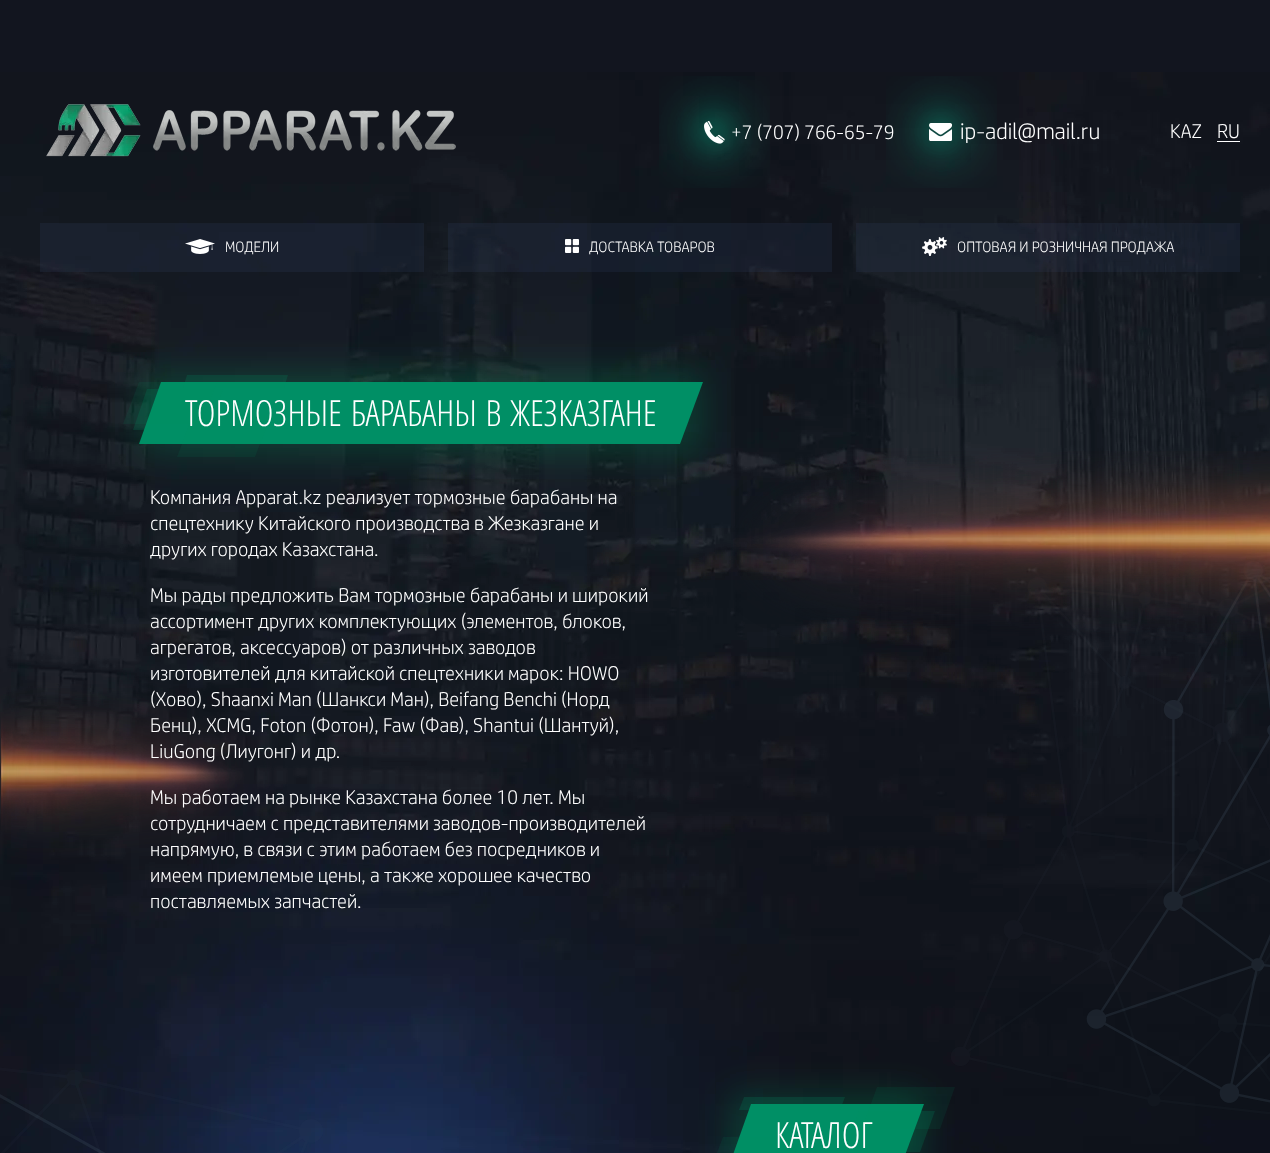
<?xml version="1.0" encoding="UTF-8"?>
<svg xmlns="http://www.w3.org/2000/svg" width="1270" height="1153">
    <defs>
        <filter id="blur1" x="-50%" y="-200%" width="200%" height="500%"><feGaussianBlur stdDeviation="17.5"/></filter>
    </defs>
    <rect width="100%" height="100%" fill="#12151F"/>
    <image x="0" y="72" width="1270" height="1081" href="img_01.png"/>
    <image x="46" y="104" width="410" height="53" href="img_02.png"/>
    <image x="659" y="76" width="111" height="112" href="img_03.png"/>
    <image x="704" y="121" width="21" height="23" href="img_04.png"/>
    <image x="886" y="76" width="111" height="112" href="img_05.png"/>
    <text x="731" y="139" font-family="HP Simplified" font-size="20" font-weight="300" fill="#FFFFFF">+7 (707) 766-65-79</text>
    <image x="929" y="123" width="23" height="18" href="img_06.png"/>
    <text x="960" y="139" font-family="HP Simplified" font-size="23" font-weight="300" fill="#FFFFFF">ip-adil@mail.ru</text>
    <text x="1170" y="138" font-family="HP Simplified" font-size="20" font-weight="300" fill="#FFFFFF">KAZ</text>
    <text x="1217" y="138" font-family="HP Simplified" font-size="20" font-weight="300" fill="#FFFFFF">RU</text>
    <rect x="1217" y="141" width="23" height="1" fill="#FFFFFF"/>
    <rect x="40" y="223" width="384" height="49" fill="#333F64" fill-opacity="0.2"/>
    <image x="185" y="239" width="30" height="15" href="img_07.png"/>
    <text x="225" y="252" font-family="HP Simplified" font-size="15" font-weight="300" fill="#FFFFFF">МОДЕЛИ</text>
    <rect x="448" y="223" width="384" height="49" fill="#333F64" fill-opacity="0.2"/>
    <image x="565" y="239" width="14" height="14" href="img_08.png"/>
    <text x="589" y="252" font-family="HP Simplified" font-size="15" font-weight="300" fill="#FFFFFF">ДОСТАВКА ТОВАРОВ</text>
    <rect x="856" y="223" width="384" height="49" fill="#333F64" fill-opacity="0.2"/>
    <image x="922" y="237" width="25" height="19" href="img_09.png"/>
    <text x="957" y="252" font-family="HP Simplified" font-size="15" font-weight="300" fill="#FFFFFF">ОПТОВАЯ И РОЗНИЧНАЯ ПРОДАЖА</text>
    <image x="733" y="451" width="537" height="663" href="img_10.png"/>
    <rect x="140" y="372" width="562" height="82" fill="#008F54" fill-opacity="0.3" filter="url(#blur1)"/>
    <path d="M 161 382 H 703 L 680 444 H 139 Z" fill="#008F65"/>
    <path d="M 147 389 H 223 L 209 430 H 133 Z" fill="#008F65" fill-opacity="0.2"/>
    <path d="M 193 415 H 271 L 255 457 H 177 Z" fill="#008F65" fill-opacity="0.1"/>
    <path d="M 139 382 H 217 L 201 424 H 123 Z" fill="#008F65" fill-opacity="0.1"/>
    <path d="M 187 375 H 288 L 284 388 H 183 Z" fill="#008F65" fill-opacity="0.2"/>
    <text x="185" y="426" word-spacing="2" font-family="Open Sans" font-size="36" font-weight="300" fill="#FFFFFF">ТОРМОЗНЫЕ БАРАБАНЫ В ЖЕЗКАЗГАНЕ</text>
    <text font-family="HP Simplified" font-size="20" font-weight="300" fill="#FFFFFF">
        <tspan x="150" y="504">Компания Apparat.kz реализует тормозные барабаны на</tspan>
        <tspan x="150" y="530">спецтехнику Китайского производства в Жезказгане и</tspan>
        <tspan x="150" y="556">других городах Казахстана.</tspan>
    </text>
    <text font-family="HP Simplified" font-size="20" font-weight="300" fill="#FFFFFF">
        <tspan x="150" y="602">Мы рады предложить Вам тормозные барабаны и широкий</tspan>
        <tspan x="150" y="628">ассортимент других комплектующих (элементов, блоков,</tspan>
        <tspan x="150" y="654">агрегатов, аксессуаров) от различных заводов</tspan>
        <tspan x="150" y="680">изготовителей для китайской спецтехники марок: HOWO</tspan>
        <tspan x="150" y="706">(Хово), Shaanxi Man (Шанкси Ман), Beifang Benchi (Норд</tspan>
        <tspan x="150" y="732">Бенц), XCMG, Foton (Фотон), Faw (Фав), Shantui (Шантуй),</tspan>
        <tspan x="150" y="758">LiuGong (Лиугонг) и др.</tspan>
    </text>
    <text font-family="HP Simplified" font-size="20" font-weight="300" fill="#FFFFFF">
        <tspan x="150" y="804">Мы работаем на рынке Казахстана более 10 лет. Мы</tspan>
        <tspan x="150" y="830">сотрудничаем с представителями заводов-производителей</tspan>
        <tspan x="150" y="856">напрямую, в связи с этим работаем без посредников и</tspan>
        <tspan x="150" y="882">имеем приемлемые цены, а также хорошее качество</tspan>
        <tspan x="150" y="908">поставляемых запчастей.</tspan>
    </text>
    <rect x="730" y="1094" width="192" height="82" fill="#008F54" fill-opacity="0.3" filter="url(#blur1)"/>
    <path d="M 751 1104 H 924 L 901 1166 H 729 Z" fill="#008F65"/>
    <path d="M 744 1097 H 845 L 840 1110 H 739 Z" fill="#008F65" fill-opacity="0.2"/>
    <path d="M 859 1111 H 935 L 920 1152 H 844 Z" fill="#008F65" fill-opacity="0.2"/>
    <path d="M 877 1087 H 955 L 940 1129 H 862 Z" fill="#008F65" fill-opacity="0.1"/>
    <path d="M 723 1137 H 801 L 785 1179 H 707 Z" fill="#008F65" fill-opacity="0.1"/>
    <text x="775" y="1148" font-family="Open Sans" font-size="36" font-weight="300" fill="#FFFFFF">КАТАЛОГ</text>
</svg>
